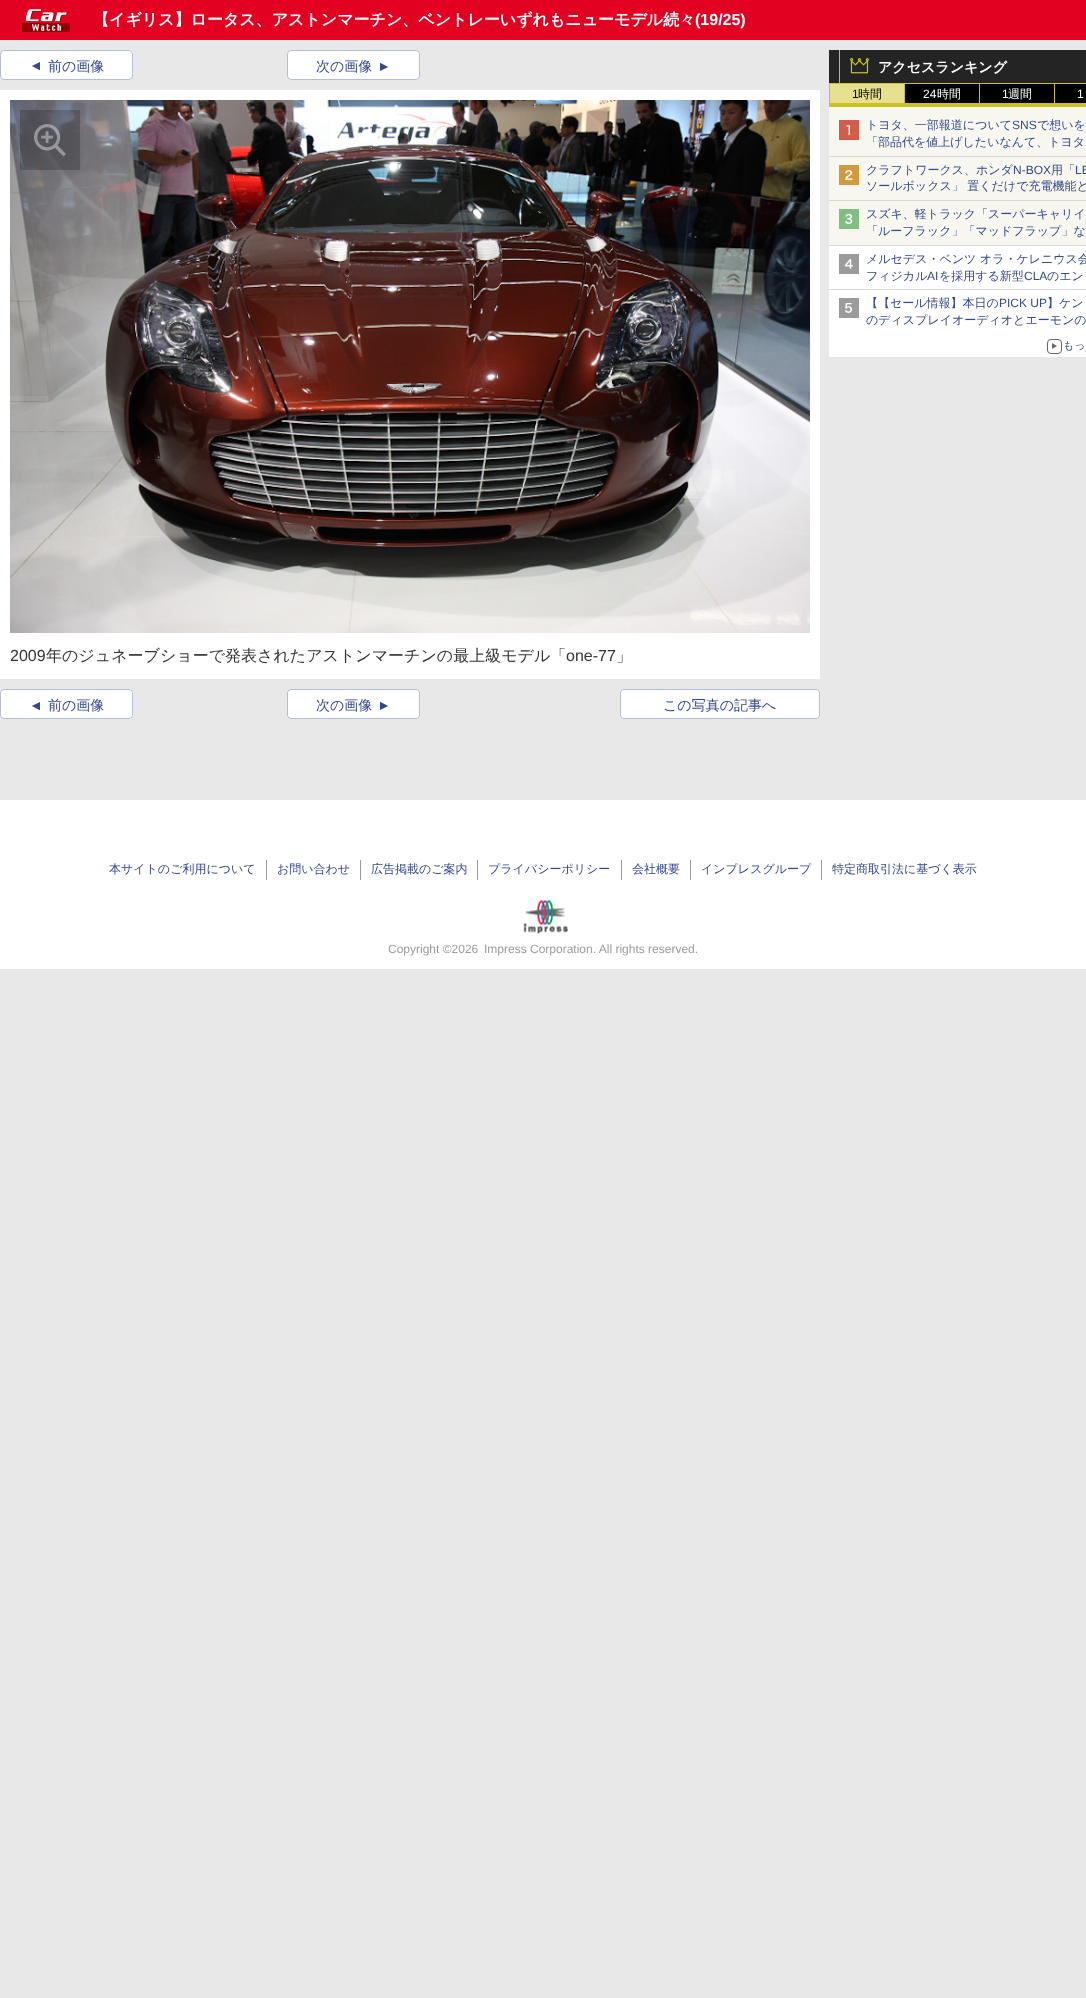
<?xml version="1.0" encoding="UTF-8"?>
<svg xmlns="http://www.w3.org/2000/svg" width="1086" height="1998">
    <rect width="100%" height="100%" fill="#E8E8E8"/>
    <rect x="0" y="0" width="1086" height="40" fill="#E30121"/>
    <image x="22" y="9" width="48" height="23" href="img_01.png"/>
    <text x="93" y="25" font-family="WenQuanYi Zen Hei" font-size="16" font-weight="700" fill="#FFFFFF">【イギリス】ロータス、アストンマーチン、ベントレーいずれもニューモデル続々</text>
    <text x="695" y="25" font-family="Liberation Sans" font-size="16" font-weight="700" fill="#FFFFFF">(19/25)</text>
    <rect x="0" y="50" width="133" height="30" rx="4" fill="#FFFFFF"/>
    <rect x="0.5" y="50.5" width="132" height="29" rx="3.5" fill="none" stroke="#32498E" stroke-opacity="0.36"/>
    <text x="40" y="73" transform="rotate(-90 40 73)" font-family="Liberation Sans" font-size="14" fill="#33498E">▲</text>
    <text x="48" y="71" font-family="WenQuanYi Zen Hei" font-size="14" font-weight="500" fill="#33498E">前の画像</text>
    <rect x="287" y="50" width="133" height="30" rx="4" fill="#FFFFFF"/>
    <rect x="287.5" y="50.5" width="132" height="29" rx="3.5" fill="none" stroke="#32498E" stroke-opacity="0.36"/>
    <text x="316" y="71" font-family="WenQuanYi Zen Hei" font-size="14" font-weight="500" fill="#33498E">次の画像</text>
    <text x="380" y="60" transform="rotate(90 380 60)" font-family="Liberation Sans" font-size="14" fill="#33498E">▲</text>
    <rect x="0" y="90" width="820" height="589" fill="#FFFFFF"/>
    <image x="10" y="100" width="800" height="533" href="img_02.png"/>
    <rect x="20" y="110" width="60" height="60" fill="#000000" fill-opacity="0.2"/>
    <image x="34" y="124" width="32" height="33" href="img_03.png"/>
    <text x="10" y="661" font-family="Liberation Sans" font-size="16" fill="#333333">2009</text>
    <text x="46" y="661" font-family="WenQuanYi Zen Hei" font-size="16" font-weight="500" fill="#333333">年のジュネーブショーで発表されたアストンマーチンの最上級モデル「</text>
    <text x="566" y="661" font-family="Liberation Sans" font-size="16" fill="#333333">one-77</text>
    <text x="616" y="661" font-family="WenQuanYi Zen Hei" font-size="16" font-weight="500" fill="#333333">」</text>
    <rect x="0" y="689" width="133" height="30" rx="4" fill="#FFFFFF"/>
    <rect x="0.5" y="689.5" width="132" height="29" rx="3.5" fill="none" stroke="#32498E" stroke-opacity="0.36"/>
    <text x="40" y="713" transform="rotate(-90 40 713)" font-family="Liberation Sans" font-size="14" fill="#33498E">▲</text>
    <text x="48" y="710" font-family="WenQuanYi Zen Hei" font-size="14" font-weight="500" fill="#33498E">前の画像</text>
    <rect x="287" y="689" width="133" height="30" rx="4" fill="#FFFFFF"/>
    <rect x="287.5" y="689.5" width="132" height="29" rx="3.5" fill="none" stroke="#32498E" stroke-opacity="0.36"/>
    <text x="316" y="710" font-family="WenQuanYi Zen Hei" font-size="14" font-weight="500" fill="#33498E">次の画像</text>
    <text x="380" y="699" transform="rotate(90 380 699)" font-family="Liberation Sans" font-size="14" fill="#33498E">▲</text>
    <rect x="620" y="689" width="200" height="30" rx="4" fill="#FFFFFF"/>
    <rect x="620.5" y="689.5" width="199" height="29" rx="3.5" fill="none" stroke="#32498E" stroke-opacity="0.36"/>
    <text x="663" y="710" font-family="WenQuanYi Zen Hei" font-size="14" font-weight="500" fill="#33498E">この写真の記事へ</text>
    <rect x="829" y="50" width="257" height="33" fill="#242424"/>
    <rect x="829" y="83" width="257" height="1" fill="#CBC121"/>
    <rect x="839" y="50" width="1" height="34" fill="#CBC121"/>
    <image x="850" y="58" width="19" height="16" href="img_04.png"/>
    <text x="878" y="72" font-family="WenQuanYi Zen Hei" font-size="14" font-weight="700" fill="#FFFFFF">アクセスランキング</text>
    <rect x="830" y="84" width="74" height="19" fill="#E7E18F"/>
    <rect x="829" y="103" width="257" height="4" fill="#CBC121"/>
    <rect x="829" y="84" width="1" height="23" fill="#CBC121"/>
    <text x="852" y="98" font-family="Liberation Sans" font-size="12" fill="#000000">1</text>
    <text x="858" y="98" font-family="WenQuanYi Zen Hei" font-size="12" font-weight="500" fill="#000000">時間</text>
    <rect x="905" y="84" width="74" height="19" fill="#000000"/>
    <rect x="904" y="84" width="1" height="23" fill="#CBC121"/>
    <text x="923" y="98" font-family="Liberation Sans" font-size="12" fill="#FFFFFF">24</text>
    <text x="937" y="98" font-family="WenQuanYi Zen Hei" font-size="12" font-weight="500" fill="#FFFFFF">時間</text>
    <rect x="980" y="84" width="74" height="19" fill="#000000"/>
    <rect x="979" y="84" width="1" height="23" fill="#CBC121"/>
    <text x="1002" y="98" font-family="Liberation Sans" font-size="12" fill="#FFFFFF">1</text>
    <text x="1008" y="98" font-family="WenQuanYi Zen Hei" font-size="12" font-weight="500" fill="#FFFFFF">週間</text>
    <rect x="1055" y="84" width="31" height="19" fill="#000000"/>
    <rect x="1054" y="84" width="1" height="23" fill="#CBC121"/>
    <text x="1077" y="98" font-family="Liberation Sans" font-size="12" fill="#FFFFFF">1</text>
    <rect x="829" y="107" width="257" height="49" fill="#F7F7EF"/>
    <rect x="829" y="156" width="257" height="1" fill="#D8D8D8"/>
    <image x="839" y="120" width="20" height="20" href="img_05.png"/>
    <text x="866" y="129" font-family="WenQuanYi Zen Hei" font-size="12" font-weight="500" fill="#33498E">トヨタ、一部報道について</text>
    <text x="1012" y="129" font-family="Liberation Sans" font-size="12" fill="#33498E">SNS</text>
    <text x="1037" y="129" font-family="WenQuanYi Zen Hei" font-size="12" font-weight="500" fill="#33498E">で想いを</text>
    <text x="866" y="146" font-family="WenQuanYi Zen Hei" font-size="12" font-weight="500" fill="#33498E">「部品代を値上げしたいなんて、トヨタ</text>
    <rect x="829" y="157" width="257" height="43" fill="#F7F7EF"/>
    <rect x="829" y="200" width="257" height="1" fill="#D8D8D8"/>
    <image x="839" y="165" width="20" height="20" href="img_06.png"/>
    <text x="866" y="174" font-family="WenQuanYi Zen Hei" font-size="12" font-weight="500" fill="#33498E">クラフトワークス、ホンダ</text>
    <text x="1013" y="174" font-family="Liberation Sans" font-size="12" fill="#33498E">N-BOX</text>
    <text x="1051" y="174" font-family="WenQuanYi Zen Hei" font-size="12" font-weight="500" fill="#33498E">用「</text>
    <text x="1075" y="174" font-family="Liberation Sans" font-size="12" fill="#33498E">LE</text>
    <text x="866" y="190" font-family="WenQuanYi Zen Hei" font-size="12" font-weight="500" fill="#33498E">ソールボックス」 置くだけで充電機能と</text>
    <rect x="829" y="201" width="257" height="44" fill="#F7F7EF"/>
    <rect x="829" y="245" width="257" height="1" fill="#D8D8D8"/>
    <image x="839" y="209" width="20" height="20" href="img_07.png"/>
    <text font-family="WenQuanYi Zen Hei" font-size="12" font-weight="500" fill="#33498E">
        <tspan x="866" y="218">スズキ、軽トラック「スーパーキャリイ</tspan>
        <tspan x="866" y="235">「ルーフラック」「マッドフラップ」な</tspan>
    </text>
    <rect x="829" y="246" width="257" height="111" fill="#FFFFFF"/>
    <rect x="829" y="289" width="257" height="1" fill="#D8D8D8"/>
    <image x="839" y="254" width="20" height="20" href="img_08.png"/>
    <text font-family="WenQuanYi Zen Hei" font-size="12" font-weight="500" fill="#33498E">
        <tspan x="866" y="263">メルセデス・ベンツ オラ・ケレニウス会</tspan>
        <tspan x="866" y="280">フィジカル</tspan>
    </text>
    <text x="927" y="280" font-family="Liberation Sans" font-size="12" fill="#33498E">AI</text>
    <text x="939" y="280" font-family="WenQuanYi Zen Hei" font-size="12" font-weight="500" fill="#33498E">を採用する新型</text>
    <text x="1024" y="280" font-family="Liberation Sans" font-size="12" fill="#33498E">CLA</text>
    <text x="1047" y="280" font-family="WenQuanYi Zen Hei" font-size="12" font-weight="500" fill="#33498E">のエン</text>
    <image x="839" y="298" width="20" height="20" href="img_09.png"/>
    <text x="866" y="307" font-family="WenQuanYi Zen Hei" font-size="12" font-weight="500" fill="#33498E">【【セール情報】本日の</text>
    <text x="999" y="307" font-family="Liberation Sans" font-size="12" fill="#33498E">PICK UP</text>
    <text x="1047" y="307" font-family="WenQuanYi Zen Hei" font-size="12" font-weight="500" fill="#33498E">】ケン</text>
    <text x="866" y="324" font-family="WenQuanYi Zen Hei" font-size="12" font-weight="500" fill="#33498E">のディスプレイオーディオとエーモンの</text>
    <rect x="1047.5" y="339.5" width="14" height="14" rx="3.5" fill="none" stroke="#666666"/>
    <text x="1063" y="349" font-family="WenQuanYi Zen Hei" font-size="11" font-weight="500" fill="#33498E">もっ</text>
    <path d="M 1052 349 V 343 L 1057 346 Z" fill="#666666"/>
    <rect x="0" y="800" width="1086" height="169" fill="#FFFFFF"/>
    <rect x="266" y="860" width="1" height="20" fill="#9B9B9B"/>
    <text x="109" y="873" font-family="WenQuanYi Zen Hei" font-size="12" font-weight="500" fill="#33498E">本サイトのご利用について</text>
    <rect x="360" y="860" width="1" height="20" fill="#9B9B9B"/>
    <text x="277" y="873" font-family="WenQuanYi Zen Hei" font-size="12" font-weight="500" fill="#33498E">お問い合わせ</text>
    <rect x="477" y="860" width="1" height="20" fill="#9B9B9B"/>
    <text x="371" y="873" font-family="WenQuanYi Zen Hei" font-size="12" font-weight="500" fill="#33498E">広告掲載のご案内</text>
    <rect x="621" y="860" width="1" height="20" fill="#9B9B9B"/>
    <text x="488" y="873" font-family="WenQuanYi Zen Hei" font-size="12" font-weight="500" fill="#33498E">プライバシーポリシー</text>
    <rect x="690" y="860" width="1" height="20" fill="#9B9B9B"/>
    <text x="632" y="873" font-family="WenQuanYi Zen Hei" font-size="12" font-weight="500" fill="#33498E">会社概要</text>
    <rect x="821" y="860" width="1" height="20" fill="#9B9B9B"/>
    <text x="701" y="873" font-family="WenQuanYi Zen Hei" font-size="12" font-weight="500" fill="#33498E">インプレスグループ</text>
    <text x="832" y="873" font-family="WenQuanYi Zen Hei" font-size="12" font-weight="500" fill="#33498E">特定商取引法に基づく表示</text>
    <image x="523" y="900" width="45" height="34" href="img_10.png"/>
    <text x="388" y="953" font-family="Liberation Sans" font-size="12" fill="#9B9B9B">Copyright ©2026</text>
    <text x="484" y="953" font-family="Liberation Sans" font-size="12" fill="#9B9B9B">Impress Corporation. All rights reserved.</text>
</svg>
